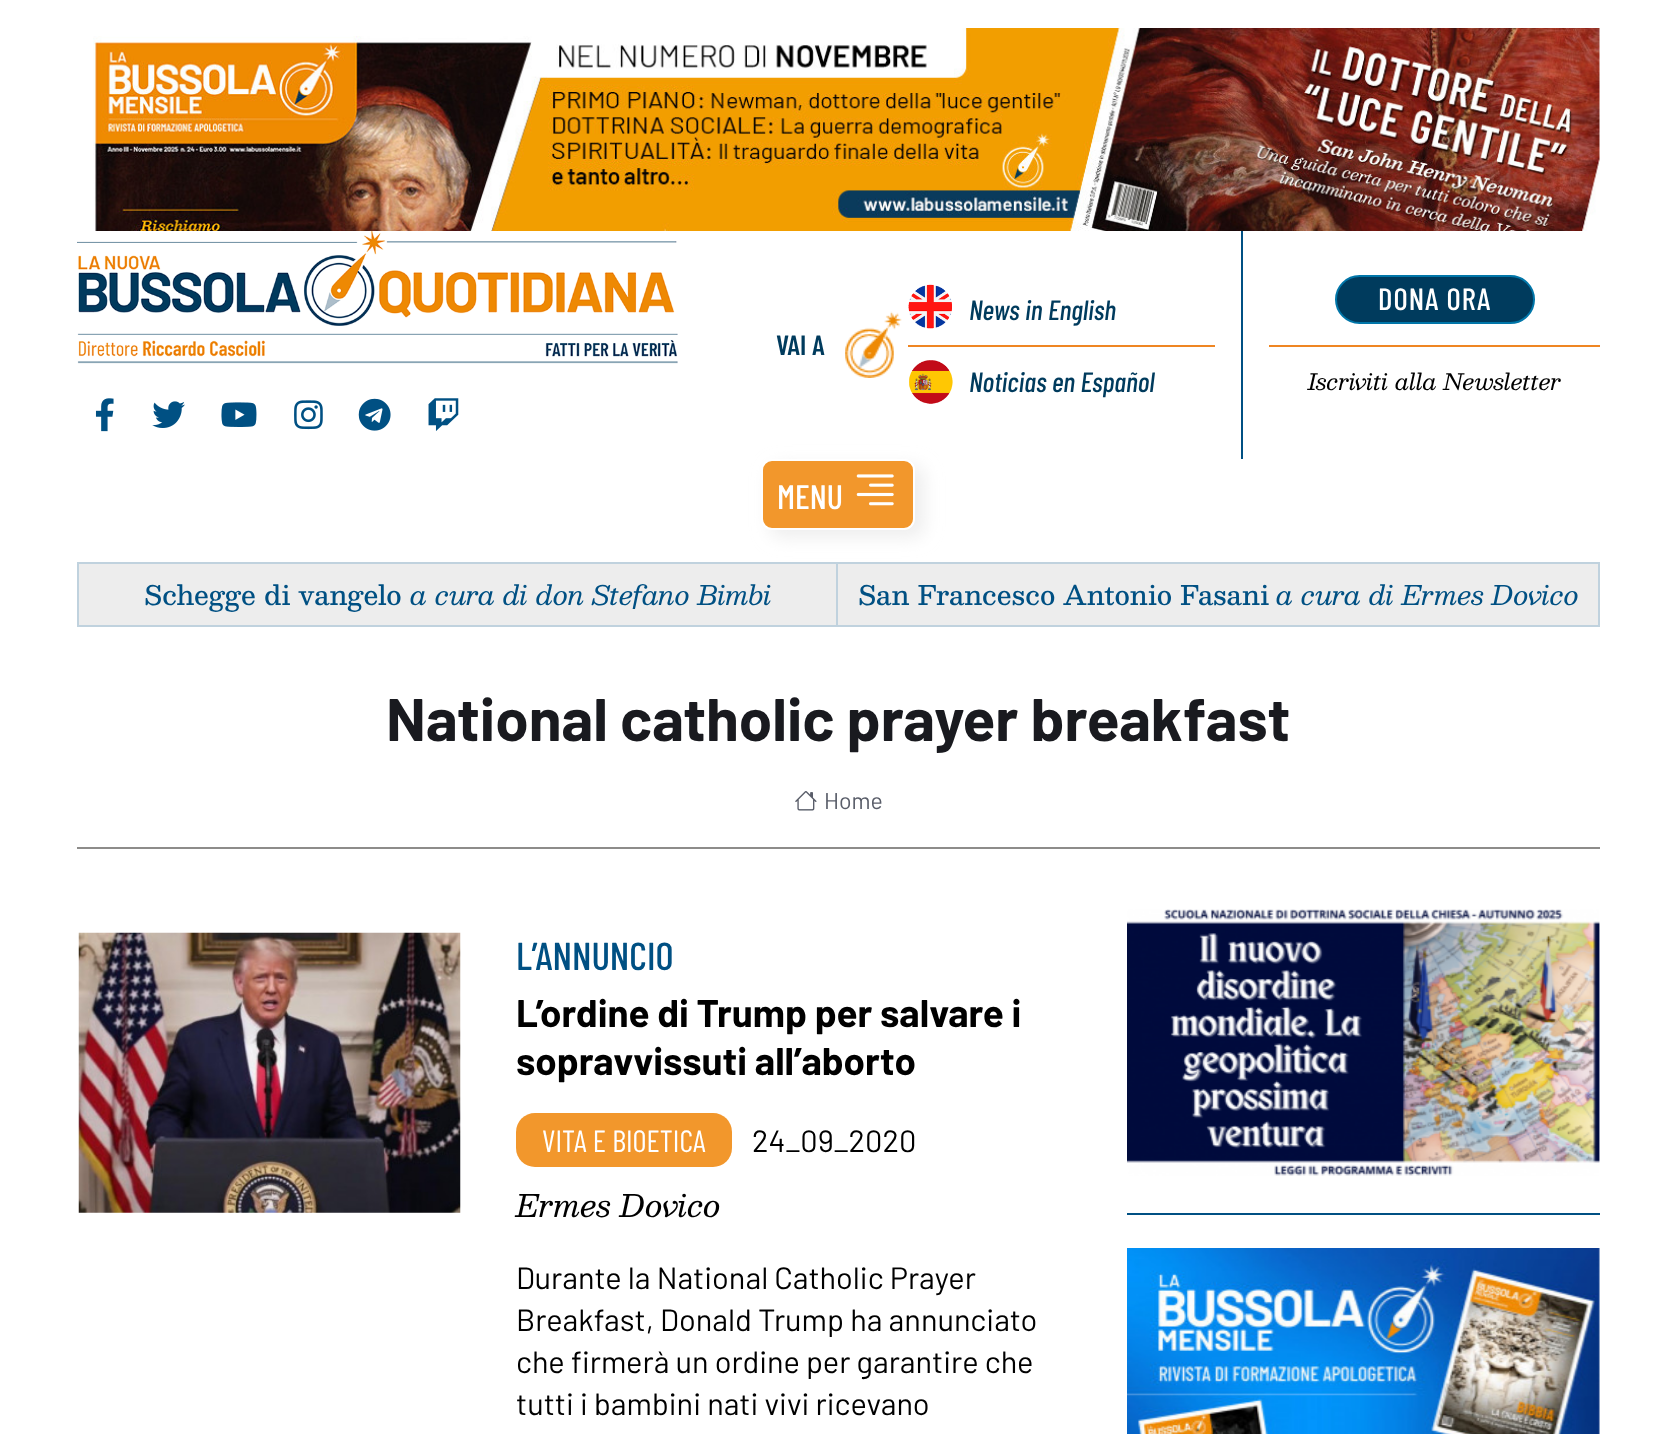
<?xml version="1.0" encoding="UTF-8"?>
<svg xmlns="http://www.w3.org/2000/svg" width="1676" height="1434">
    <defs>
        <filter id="blur1" x="-50%" y="-200%" width="200%" height="500%"><feGaussianBlur stdDeviation="9"/></filter>
    </defs>
    <rect width="100%" height="100%" fill="#FFFFFF"/>
    <image x="93" y="28" width="1507" height="203" href="img_01.png"/>
    <image x="77" y="231" width="601" height="133" href="img_02.png"/>
    <image x="95" y="398" width="19" height="34" href="img_03.png"/>
    <image x="152" y="401" width="33" height="27" href="img_04.png"/>
    <image x="221" y="402" width="36" height="25" href="img_05.png"/>
    <image x="294" y="400" width="29" height="30" href="img_06.png"/>
    <image x="358" y="398" width="33" height="33" href="img_07.png"/>
    <image x="428" y="398" width="31" height="33" href="img_08.png"/>
    <rect x="1241" y="231" width="2" height="228" fill="#005083"/>
    <image x="908" y="284" width="44" height="45" href="img_09.png"/>
    <text x="969" y="320" font-family="Barlow Condensed" font-size="28" font-weight="500" font-style="italic" fill="#003B5D">News in English</text>
    <image x="845" y="311" width="57" height="67" href="img_10.png"/>
    <text x="776" y="355" font-family="Barlow Condensed" font-size="28" font-weight="600" fill="#003B5D">VAI A</text>
    <rect x="908" y="345" width="307" height="2" fill="#EF8623"/>
    <image x="909" y="360" width="44" height="44" href="img_11.png"/>
    <text x="969" y="392" font-family="Barlow Condensed" font-size="28" font-weight="500" font-style="italic" fill="#003B5D">Noticias en Español</text>
    <rect x="1336" y="276" width="198" height="47" rx="23.5" fill="#003B5D" stroke="#0076A9" stroke-width="2"/>
    <text x="1378" y="310" font-family="Barlow Condensed" font-size="30.75" font-weight="500" letter-spacing="1" fill="#FFFFFF">DONA ORA</text>
    <rect x="1269" y="345" width="331" height="2" fill="#EF8623"/>
    <text x="1308" y="390" font-family="Besley" font-size="22.4" font-style="italic" fill="#000000">Iscriviti alla Newsletter</text>
    <rect x="78" y="563" width="759" height="63" fill="#EDEDED" stroke="#C0D2DE" stroke-width="2"/>
    <rect x="838" y="564" width="760" height="61" fill="#EDEDED"/>
    <rect x="838" y="562" width="762" height="2" fill="#C0D2DE"/>
    <rect x="770" y="466" width="154" height="71" rx="11" fill="#EDEDED" filter="url(#blur1)"/>
    <rect x="762" y="460" width="152" height="69" rx="10" fill="#F2972C" stroke="#FFFFFF" stroke-width="2"/>
    <text x="777" y="509" font-family="Barlow Condensed" font-size="34" font-weight="500" fill="#FFFFFF">MENU</text>
    <image x="856" y="474" width="38" height="32" href="img_12.png"/>
    <text x="144" y="605" font-family="Besley" font-size="26.6" font-weight="500" fill="#005083">Schegge di vangelo</text>
    <text x="410" y="605" font-family="Besley" font-size="26.6" font-style="italic" fill="#005083">a cura di don Stefano Bimbi</text>
    <rect x="1598" y="562" width="2" height="65" fill="#C0D2DE"/>
    <rect x="838" y="625" width="762" height="2" fill="#C0D2DE"/>
    <text x="858" y="605" font-family="Besley" font-size="26.6" font-weight="500" fill="#005083">San Francesco Antonio Fasani</text>
    <text x="1276" y="605" font-family="Besley" font-size="26.6" font-style="italic" fill="#005083">a cura di Ermes Dovico</text>
    <rect x="77" y="847" width="1523" height="2" fill="#8D8C8A"/>
    <text x="386" y="741" font-family="Barlow" font-size="60.1" font-weight="700" fill="#191A1F">National catholic prayer breakfast</text>
    <image x="795" y="791" width="22" height="20" href="img_13.png"/>
    <text x="824" y="809" font-family="Barlow" font-size="23" fill="#595D69">Home</text>
    <image x="78" y="932" width="383" height="281" href="img_14.png"/>
    <text x="516" y="970" font-family="Barlow Condensed" font-size="39" font-weight="500" fill="#005083">L’ANNUNCIO</text>
    <text font-family="Barlow" font-size="38.6" font-weight="700" fill="#000000">
        <tspan x="516" y="1027">L’ordine di Trump per salvare i</tspan>
        <tspan x="516" y="1075">sopravvissuti all’aborto</tspan>
    </text>
    <rect x="516" y="1113" width="216" height="54" rx="19" fill="#F2972C"/>
    <text x="542" y="1152" font-family="Barlow Condensed" font-size="30.75" fill="#FFFFFF">VITA E BIOETICA</text>
    <text x="752" y="1152" font-family="Barlow" font-size="30.75" fill="#000000">24_09_2020</text>
    <text x="516" y="1217" font-family="Besley" font-size="30.75" font-style="italic" fill="#000000">Ermes Dovico</text>
    <text font-family="Barlow" font-size="30.75" fill="#000000">
        <tspan x="516" y="1289">Durante la National Catholic Prayer</tspan>
        <tspan x="516" y="1331">Breakfast, Donald Trump ha annunciato</tspan>
        <tspan x="516" y="1373">che firmerà un ordine per garantire che</tspan>
        <tspan x="516" y="1415">tutti i bambini nati vivi ricevano</tspan>
    </text>
    <rect x="1127" y="1213" width="473" height="2" fill="#005083"/>
    <image x="1127" y="909" width="473" height="267" href="img_15.png"/>
    <image x="1127" y="1248" width="473" height="186" href="img_16.png"/>
</svg>
